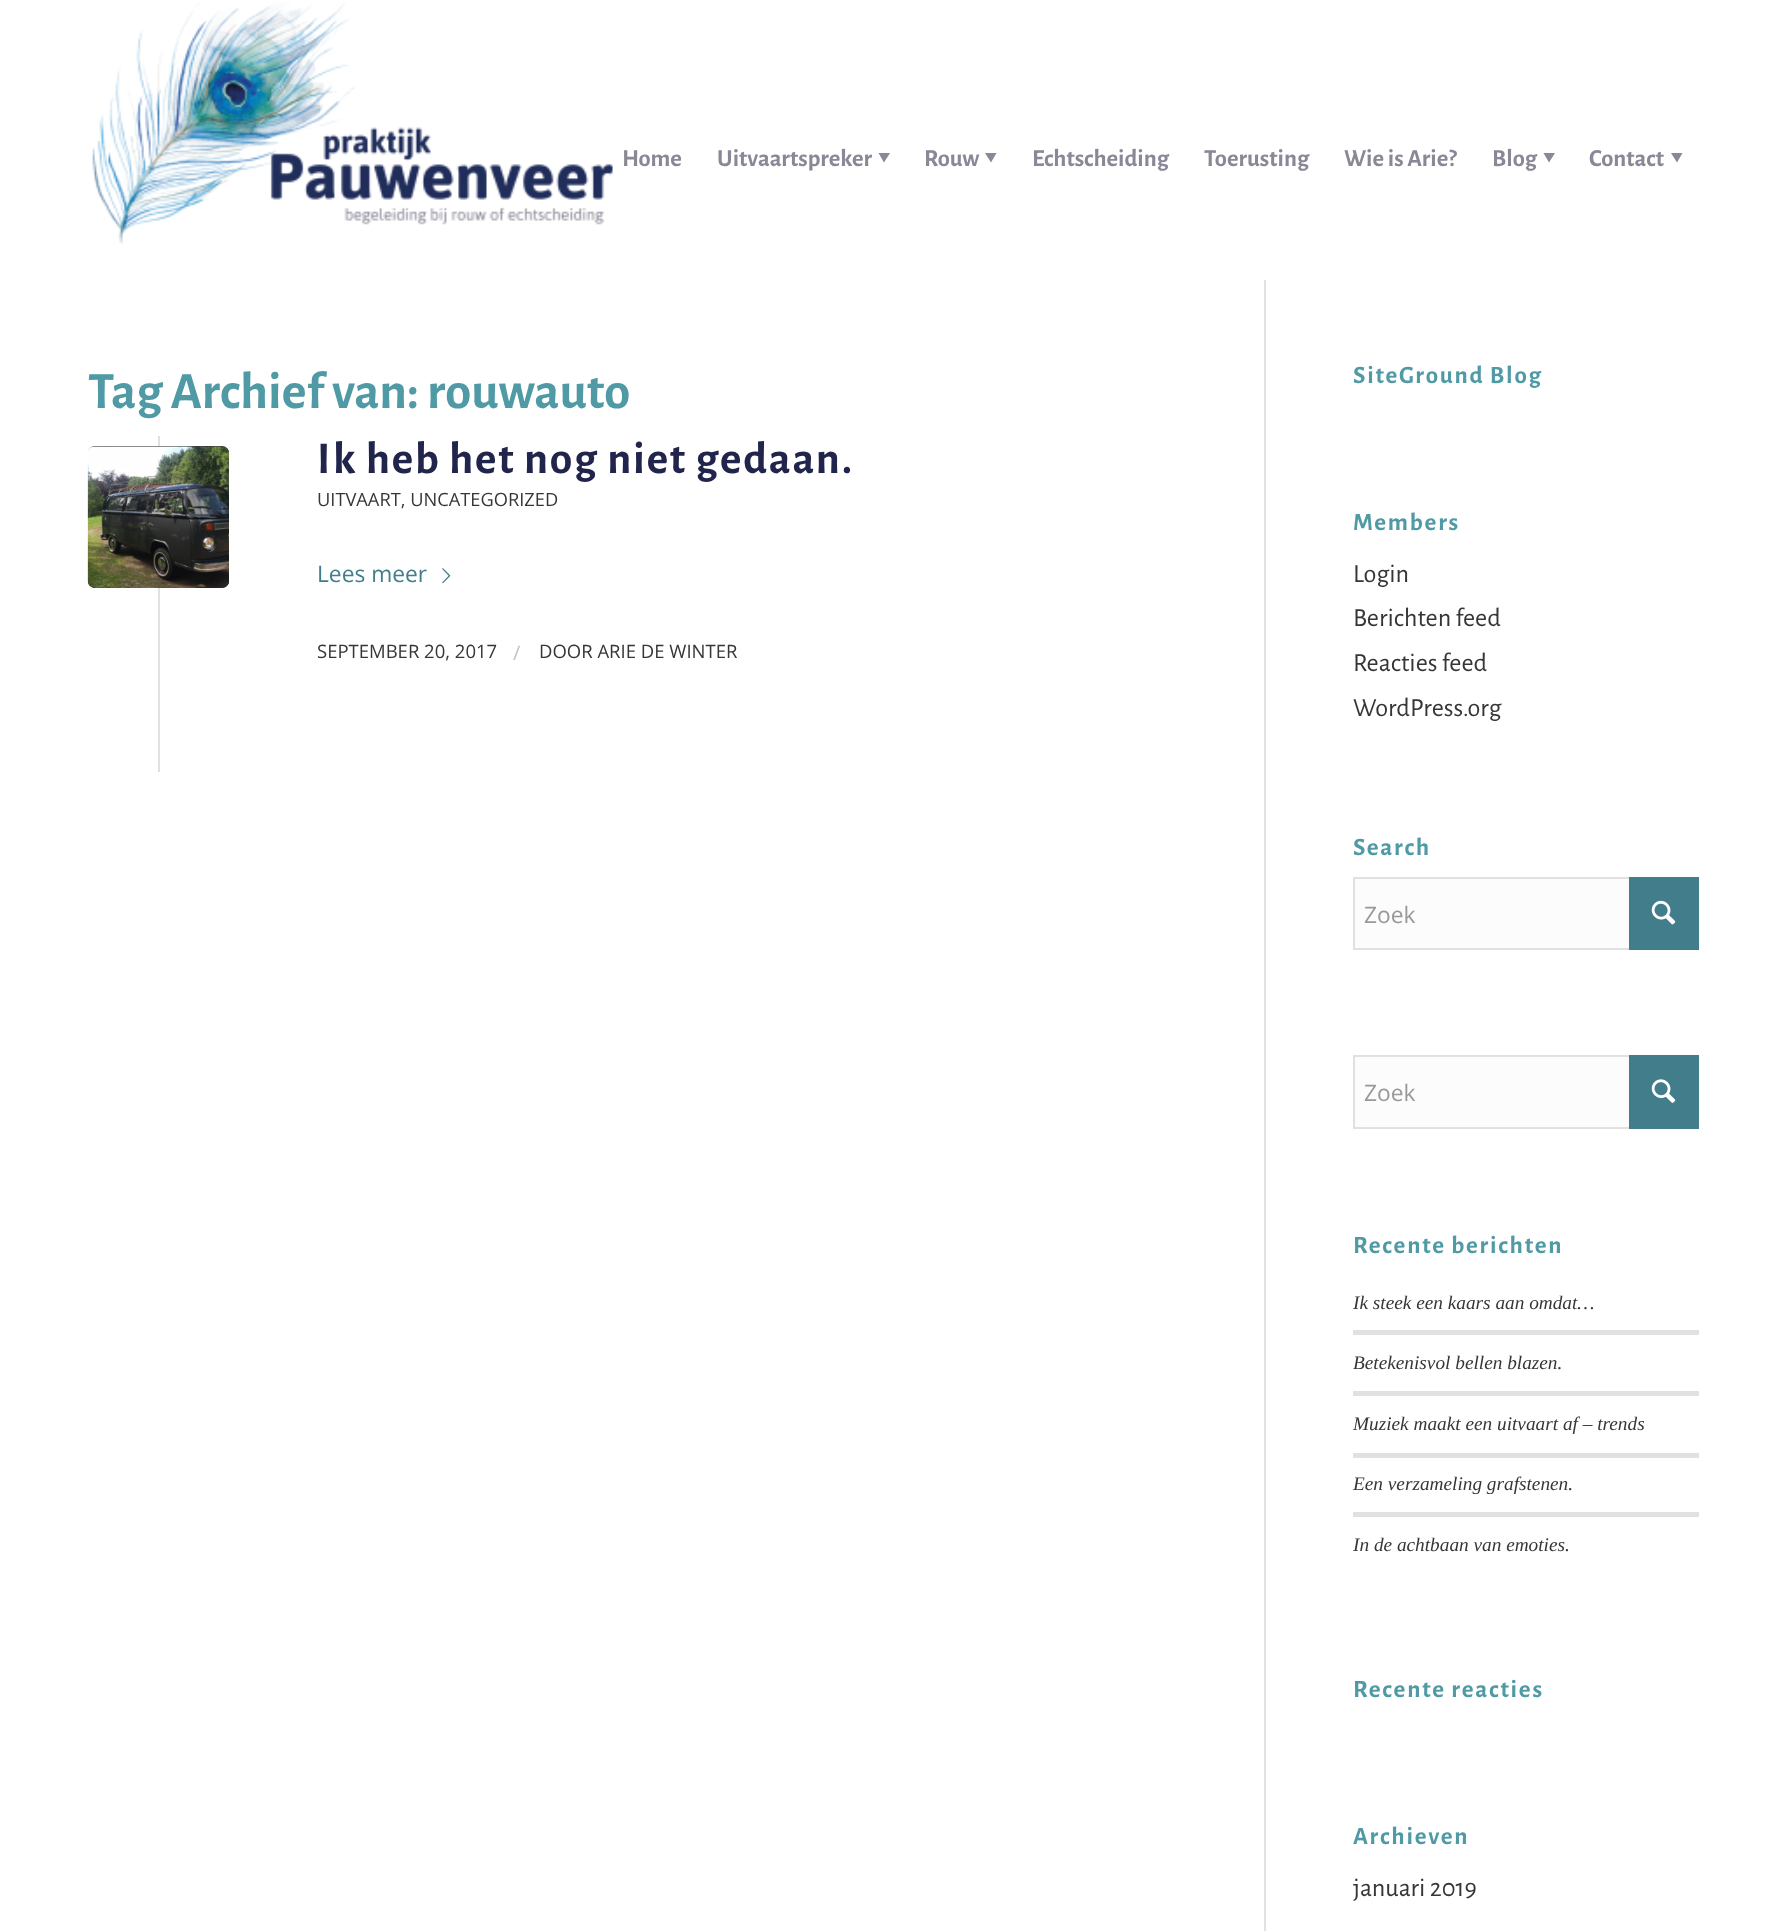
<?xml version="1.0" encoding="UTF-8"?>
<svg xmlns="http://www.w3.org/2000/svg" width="1786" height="1931">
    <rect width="100%" height="100%" fill="#FFFFFF"/>
    <image x="92" y="2" width="521" height="242" href="img_01.png"/>
    <text x="622" y="166" font-family="Alegreya Sans" font-size="24.5" font-weight="700" fill="#8A8796">Home</text>
    <text x="717" y="166" font-family="Alegreya Sans" font-size="24.5" font-weight="700" fill="#8A8796">Uitvaartspreker</text>
    <path d="M 890 153 L 884 162.5 L 878.5 153 Z" fill="#8A8796"/>
    <text x="924" y="166" font-family="Alegreya Sans" font-size="24.5" font-weight="700" fill="#8A8796">Rouw</text>
    <path d="M 996.5 153 L 991 162.5 L 985 153 Z" fill="#8A8796"/>
    <text x="1032" y="166" font-family="Alegreya Sans" font-size="24.5" font-weight="700" fill="#8A8796">Echtscheiding</text>
    <text x="1204" y="166" font-family="Alegreya Sans" font-size="24.5" font-weight="700" fill="#8A8796">Toerusting</text>
    <text x="1344" y="166" font-family="Alegreya Sans" font-size="24.5" font-weight="700" fill="#8A8796">Wie is Arie?</text>
    <text x="1492" y="166" font-family="Alegreya Sans" font-size="24.5" font-weight="700" fill="#8A8796">Blog</text>
    <path d="M 1555 153 L 1549 162.5 L 1543.5 153 Z" fill="#8A8796"/>
    <text x="1589" y="166" font-family="Alegreya Sans" font-size="24.5" font-weight="700" fill="#8A8796">Contact</text>
    <path d="M 1682.5 153 L 1677 162.5 L 1671 153 Z" fill="#8A8796"/>
    <rect x="1264" y="277" width="2" height="1654" fill="#E1E1E1"/>
    <rect x="1264" y="277" width="2" height="3" fill="#FFFFFF"/>
    <text x="88" y="408" font-family="Alegreya Sans" font-size="52.5" font-weight="700" fill="#4F9AA4">Tag Archief van: rouwauto</text>
    <rect x="158" y="436" width="2" height="336" fill="#E1E1E1"/>
    <text x="317" y="473" font-family="Alegreya Sans" font-size="45.5" font-weight="700" letter-spacing="1.75" fill="#21244B">Ik heb het nog niet gedaan.</text>
    <text x="317" y="506" font-family="Open Sans" font-size="18.25" fill="#363636">UITVAART, UNCATEGORIZED</text>
    <text x="317" y="582" font-family="Open Sans" font-size="22.75" fill="#427D8C">Lees meer</text>
    <image x="442" y="568" width="9" height="16" href="img_02.png"/>
    <text x="317" y="658" font-family="Open Sans" font-size="18.5" fill="#363636">SEPTEMBER 20, 2017</text>
    <text x="513" y="660" font-family="Open Sans" font-size="20" fill="#C3C3C3">/</text>
    <text x="539" y="658" font-family="Open Sans" font-size="18.5" fill="#363636">DOOR ARIE DE WINTER</text>
    <rect x="88" y="446" width="141" height="142" rx="7" fill="#363636"/>
    <image x="87" y="446" width="142" height="142" href="img_03.png"/>
    <text x="1353" y="383" font-family="Alegreya Sans" font-size="25" font-weight="700" letter-spacing="1.75" fill="#4F9AA4">SiteGround Blog</text>
    <text x="1353" y="530" font-family="Alegreya Sans" font-size="25" font-weight="700" letter-spacing="1.75" fill="#4F9AA4">Members</text>
    <text font-family="Alegreya Sans" font-size="26.25" fill="#363636">
        <tspan x="1353" y="582">Login</tspan>
        <tspan x="1353" y="626">Berichten feed</tspan>
        <tspan x="1353" y="671">Reacties feed</tspan>
        <tspan x="1353" y="716">WordPress.org</tspan>
    </text>
    <text x="1353" y="855" font-family="Alegreya Sans" font-size="25" font-weight="700" letter-spacing="1.75" fill="#4F9AA4">Search</text>
    <rect x="1355" y="879" width="274" height="69" fill="#FCFCFC"/>
    <rect x="1354" y="878" width="344" height="71" fill="none" stroke="#E1E1E1" stroke-width="2"/>
    <rect x="1629" y="877" width="70" height="73" fill="#427D8C"/>
    <text x="1364" y="923" font-family="Open Sans" font-size="22.75" fill="#999999">Zoek</text>
    <image x="1651" y="900" width="25" height="25" href="img_04.png"/>
    <rect x="1355" y="1057" width="274" height="70" fill="#FCFCFC"/>
    <rect x="1354" y="1056" width="344" height="72" fill="none" stroke="#E1E1E1" stroke-width="2"/>
    <rect x="1629" y="1055" width="70" height="74" fill="#427D8C"/>
    <text x="1364" y="1101" font-family="Open Sans" font-size="22.75" fill="#999999">Zoek</text>
    <image x="1651" y="1079" width="25" height="24" href="img_05.png"/>
    <text x="1353" y="1253" font-family="Alegreya Sans" font-size="25" font-weight="700" letter-spacing="1.75" fill="#4F9AA4">Recente berichten</text>
    <text x="1353" y="1309" font-family="Liberation Serif" font-size="19.3" font-style="italic" fill="#363636">Ik steek een kaars aan omdat…</text>
    <rect x="1353" y="1330" width="346" height="5" fill="#E1E1E1"/>
    <text x="1353" y="1369" font-family="Liberation Serif" font-size="19.3" font-style="italic" fill="#363636">Betekenisvol bellen blazen.</text>
    <rect x="1353" y="1391" width="346" height="5" fill="#E1E1E1"/>
    <text x="1353" y="1430" font-family="Liberation Serif" font-size="19.3" font-style="italic" fill="#363636">Muziek maakt een uitvaart af – trends</text>
    <rect x="1353" y="1453" width="346" height="5" fill="#E1E1E1"/>
    <text x="1353" y="1490" font-family="Liberation Serif" font-size="19.3" font-style="italic" fill="#363636">Een verzameling grafstenen.</text>
    <rect x="1353" y="1512" width="346" height="5" fill="#E1E1E1"/>
    <text x="1353" y="1551" font-family="Liberation Serif" font-size="19.3" font-style="italic" fill="#363636">In de achtbaan van emoties.</text>
    <text x="1353" y="1697" font-family="Alegreya Sans" font-size="25" font-weight="700" letter-spacing="1.75" fill="#4F9AA4">Recente reacties</text>
    <text x="1353" y="1844" font-family="Alegreya Sans" font-size="25" font-weight="700" letter-spacing="1.75" fill="#4F9AA4">Archieven</text>
    <text x="1353" y="1896" font-family="Alegreya Sans" font-size="26.25" fill="#363636">januari 2019</text>
</svg>
